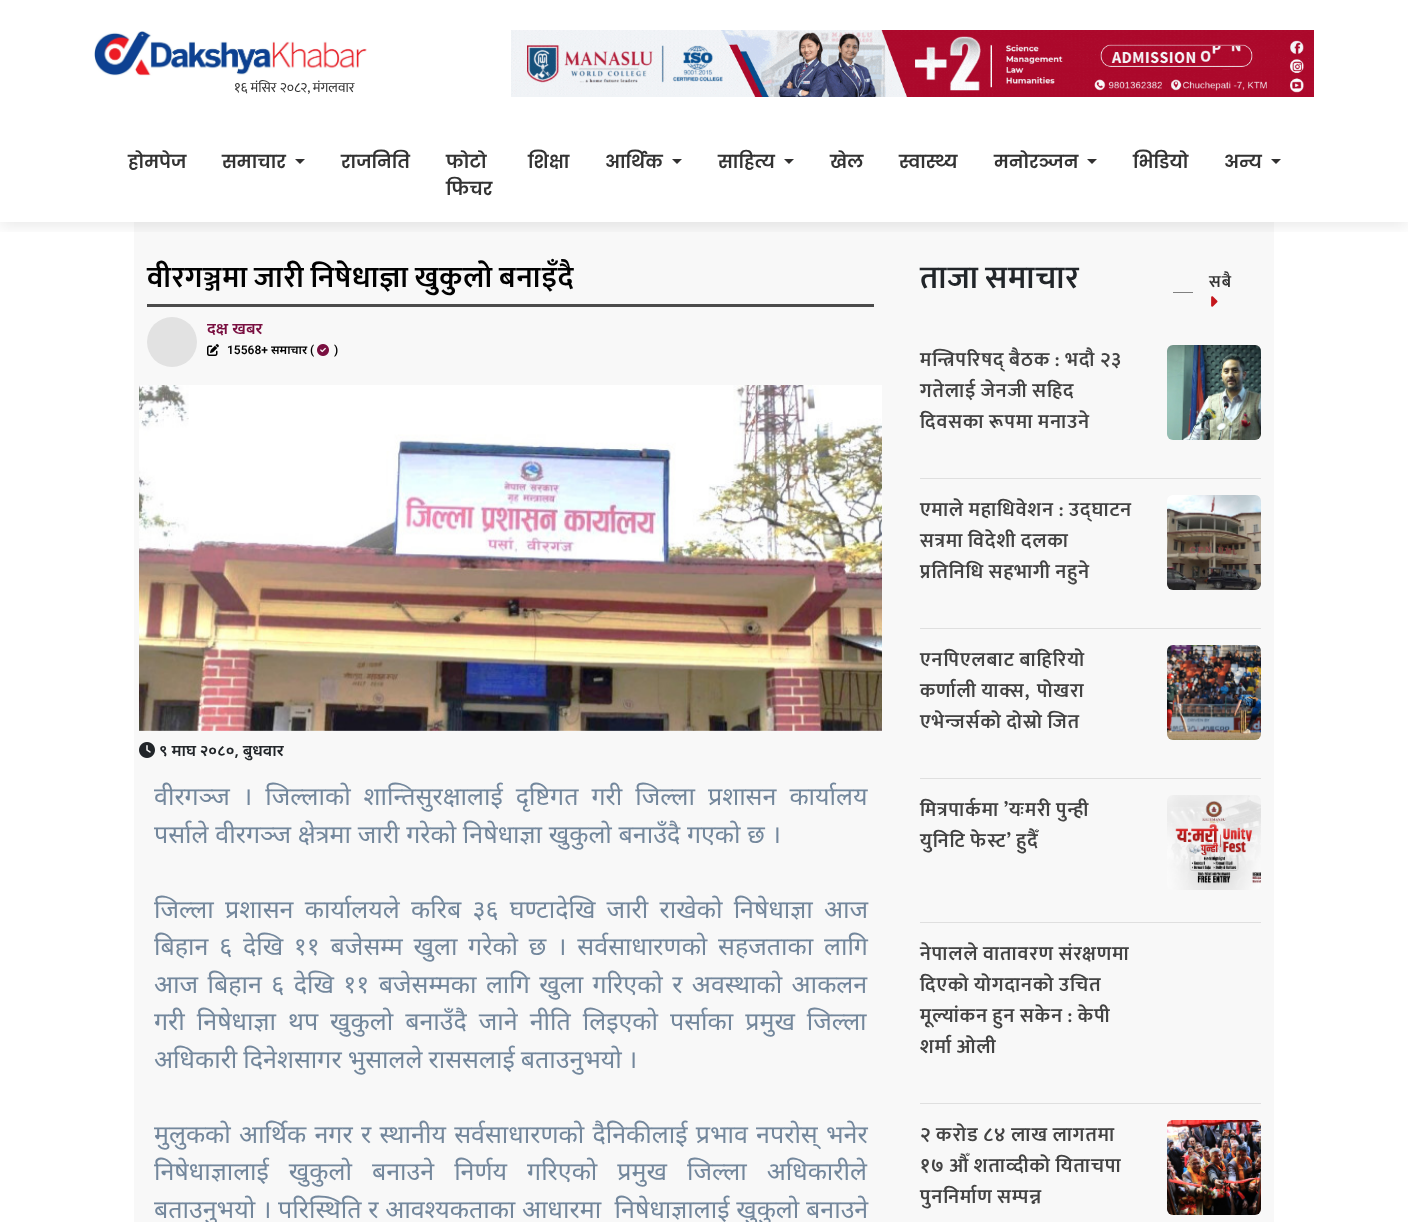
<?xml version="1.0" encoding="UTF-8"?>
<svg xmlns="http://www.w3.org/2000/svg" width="1408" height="1222">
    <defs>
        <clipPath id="clip1"><rect x="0" y="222" width="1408" height="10"/></clipPath>
        <filter id="blur1" x="-50%" y="-200%" width="200%" height="500%"><feGaussianBlur stdDeviation="7.5"/></filter>
    </defs>
    <rect width="100%" height="100%" fill="#FFFFFF"/>
    <image x="94" y="31" width="273" height="45" href="img_01.png"/>
    <image x="235" y="80" width="120" height="14" href="img_02.png"/>
    <image x="511" y="30" width="803" height="67" href="img_03.png"/>
    <rect x="134" y="222" width="1140" height="1000" fill="#F8F8F8"/>
    <g clip-path="url(#clip1)">
        <rect x="0" y="133" width="1408" height="94" fill="#000000" fill-opacity="0.08" filter="url(#blur1)"/>
    </g>
    <text x="128" y="168" font-family="Poppins" font-size="18" font-weight="600" fill="#333333">होमपेज</text>
    <text x="222" y="168" font-family="Poppins" font-size="18" font-weight="600" fill="#333333">समाचार</text>
    <path d="M 295 159 H 305 L 300 164 Z" fill="#313030"/>
    <text x="341" y="168" font-family="Poppins" font-size="18" font-weight="600" fill="#333333">राजनिति</text>
    <text font-family="Poppins" font-size="18" font-weight="600" fill="#333333">
        <tspan x="446" y="168">फाेटाे</tspan>
        <tspan x="446" y="195">फिचर</tspan>
    </text>
    <text x="528" y="168" font-family="Poppins" font-size="18" font-weight="600" fill="#333333">शिक्षा</text>
    <text x="605" y="168" font-family="Poppins" font-size="18" font-weight="600" fill="#333333">आर्थिक</text>
    <path d="M 672 159 H 682 L 677 164 Z" fill="#313030"/>
    <text x="718" y="168" font-family="Poppins" font-size="18" font-weight="600" fill="#333333">साहित्य</text>
    <path d="M 784 159 H 794 L 789 164 Z" fill="#313030"/>
    <text x="830" y="168" font-family="Poppins" font-size="18" font-weight="600" fill="#333333">खेल</text>
    <text x="899" y="168" font-family="Poppins" font-size="18" font-weight="600" fill="#333333">स्वास्थ्य</text>
    <text x="994" y="168" font-family="Poppins" font-size="18" font-weight="600" fill="#333333">मनोरञ्जन</text>
    <path d="M 1087 159 H 1097 L 1092 164 Z" fill="#313030"/>
    <text x="1133" y="168" font-family="Poppins" font-size="18" font-weight="600" fill="#333333">भिडियो</text>
    <text x="1224" y="168" font-family="Poppins" font-size="18" font-weight="600" fill="#333333">अन्य</text>
    <path d="M 1271 159 H 1281 L 1276 164 Z" fill="#313030"/>
    <text x="147" y="287" word-spacing="-2" font-family="Mukta" font-size="30" font-weight="600" letter-spacing="1" fill="#010101">वीरगञ्जमा जारी निषेधाज्ञा खुकुलो बनाइँदै</text>
    <rect x="147" y="304" width="727" height="3" fill="#4B4B4B"/>
    <circle cx="172" cy="342" r="25" fill="#E2E2E2"/>
    <text x="207" y="334" font-family="Noto Sans" font-size="16" font-weight="600" fill="#790F40">दक्ष खबर</text>
    <image x="207" y="344" width="12" height="12" href="img_04.png"/>
    <text x="227" y="354" font-family="Roboto" font-size="12" font-weight="600" fill="#010101">15568+</text>
    <text x="271" y="354" font-family="Noto Sans" font-size="12" font-weight="600" fill="#010101">समाचार</text>
    <text x="310" y="354" font-family="Roboto" font-size="12" font-weight="600" fill="#010101">(</text>
    <image x="317" y="344" width="12" height="12" href="img_05.png"/>
    <text x="334" y="354" font-family="Roboto" font-size="12" font-weight="600" fill="#010101">)</text>
    <image x="139" y="385" width="743" height="346" href="img_06.png"/>
    <image x="139" y="742" width="16" height="16" href="img_07.png"/>
    <text x="159" y="756" word-spacing="-0.5" font-family="Noto Sans" font-size="16" font-weight="600" fill="#212529">९ माघ २०८०, बुधवार</text>
    <text font-family="Noto Sans" font-size="25" fill="#73879C">
        <tspan x="154" y="805" word-spacing="6.5">वीरगञ्ज । जिल्लाको शान्तिसुरक्षालाई दृष्टिगत गरी जिल्ला प्रशासन कार्यालय</tspan>
        <tspan x="154" y="843" word-spacing="0.25">पर्साले वीरगञ्ज क्षेत्रमा जारी गरेको निषेधाज्ञा खुकुलो बनाउँदै गएको छ ।</tspan>
    </text>
    <text font-family="Noto Sans" font-size="25" fill="#73879C">
        <tspan x="154" y="918" word-spacing="4.75">जिल्ला प्रशासन कार्यालयले करिब ३६ घण्टादेखि जारी राखेको निषेधाज्ञा आज</tspan>
        <tspan x="154" y="955" word-spacing="4.25">बिहान ६ देखि ११ बजेसम्म खुला गरेको छ । सर्वसाधारणको सहजताका लागि</tspan>
        <tspan x="154" y="993" word-spacing="2.9">आज बिहान ६ देखि ११ बजेसम्मका लागि खुला गरिएको र अवस्थाको आकलन</tspan>
        <tspan x="154" y="1030" word-spacing="5.5">गरी निषेधाज्ञा थप खुकुलो बनाउँदै जाने नीति लिइएको पर्साका प्रमुख जिल्ला</tspan>
        <tspan x="154" y="1068" word-spacing="-0.5">अधिकारी दिनेशसागर भुसालले राससलाई बताउनुभयो ।</tspan>
    </text>
    <text font-family="Noto Sans" font-size="25" fill="#73879C" xml:space="preserve"><tspan x="154" y="1143" word-spacing="1.75">मुलुकको आर्थिक नगर र स्थानीय सर्वसाधारणको दैनिकीलाई प्रभाव नपरोस् भनेर</tspan><tspan x="154" y="1180" word-spacing="13.5">निषेधाज्ञालाई खुकुलो बनाउने निर्णय गरिएको प्रमुख जिल्ला अधिकारीले</tspan><tspan x="154" y="1218" word-spacing="0.25">बताउनुभयो । परिस्थिति र आवश्यकताका आधारमा  निषेधाज्ञालाई खुकुलो बनाउने</tspan></text>
    <text x="920" y="288" word-spacing="-2" font-family="Mukta" font-size="32" font-weight="600" letter-spacing="1" fill="#212529">ताजा समाचार</text>
    <text x="1209" y="287" font-family="Mukta" font-size="17" font-weight="600" letter-spacing="1" fill="#333333">सबै</text>
    <image x="1211" y="296" width="7" height="11" href="img_08.png"/>
    <rect x="1173" y="292" width="20" height="1" fill="#808080"/>
    <text font-family="Mukta" font-size="20" font-weight="600" letter-spacing="1" fill="#434343">
        <tspan x="920" y="366" word-spacing="-1">मन्त्रिपरिषद् बैठक : भदौ २३</tspan>
        <tspan x="920" y="397" word-spacing="-1">गतेलाई जेनजी सहिद</tspan>
        <tspan x="920" y="428" word-spacing="-1">दिवसका रूपमा मनाउने</tspan>
    </text>
    <image x="1167" y="345" width="94" height="95" href="img_09.png"/>
    <rect x="920" y="478" width="341" height="1" fill="#DFDFDF"/>
    <text font-family="Mukta" font-size="20" font-weight="600" letter-spacing="1" fill="#434343">
        <tspan x="920" y="516" word-spacing="-1">एमाले महाधिवेशन : उद्घाटन</tspan>
        <tspan x="920" y="547" word-spacing="-1">सत्रमा विदेशी दलका</tspan>
        <tspan x="920" y="578" word-spacing="-1">प्रतिनिधि सहभागी नहुने</tspan>
    </text>
    <image x="1167" y="495" width="94" height="95" href="img_10.png"/>
    <rect x="920" y="628" width="341" height="1" fill="#DFDFDF"/>
    <text font-family="Mukta" font-size="20" font-weight="600" letter-spacing="1" fill="#434343">
        <tspan x="920" y="666" word-spacing="-1">एनपिएलबाट बाहिरियो</tspan>
        <tspan x="920" y="697" word-spacing="-1">कर्णाली याक्स,</tspan>
    </text>
    <text x="1037" y="697" font-family="Mukta" font-size="20" font-weight="600" letter-spacing="1" fill="#434343">पोखरा</text>
    <text x="920" y="728" word-spacing="-1" font-family="Mukta" font-size="20" font-weight="600" letter-spacing="1" fill="#434343">एभेन्जर्सको दोस्रो जित</text>
    <image x="1167" y="645" width="94" height="95" href="img_11.png"/>
    <rect x="920" y="778" width="341" height="1" fill="#DFDFDF"/>
    <text font-family="Mukta" font-size="20" font-weight="600" letter-spacing="1" fill="#434343">
        <tspan x="920" y="816" word-spacing="-1">मित्रपार्कमा ’यःमरी पुन्ही</tspan>
        <tspan x="920" y="847" word-spacing="-1">युनिटि फेस्ट’ हुदैँ</tspan>
    </text>
    <image x="1167" y="795" width="94" height="95" href="img_12.png"/>
    <rect x="920" y="922" width="341" height="1" fill="#DFDFDF"/>
    <text font-family="Mukta" font-size="20" font-weight="600" letter-spacing="1" fill="#434343">
        <tspan x="920" y="960" word-spacing="-1">नेपालले वातावरण संरक्षणमा</tspan>
        <tspan x="920" y="991" word-spacing="-1">दिएको योगदानको उचित</tspan>
        <tspan x="920" y="1022" word-spacing="-1">मूल्यांकन हुन सकेन : केपी</tspan>
        <tspan x="920" y="1053" word-spacing="-1">शर्मा ओली</tspan>
    </text>
    <rect x="920" y="1103" width="341" height="1" fill="#DFDFDF"/>
    <text font-family="Mukta" font-size="20" font-weight="600" letter-spacing="1" fill="#434343">
        <tspan x="920" y="1141" word-spacing="-1">२ करोड ८४ लाख लागतमा</tspan>
        <tspan x="920" y="1172" word-spacing="-1">१७ औँ शताव्दीको यिताचपा</tspan>
        <tspan x="920" y="1203" word-spacing="-1">पुननिर्माण सम्पन्न</tspan>
    </text>
    <image x="1167" y="1120" width="94" height="95" href="img_13.png"/>
</svg>
